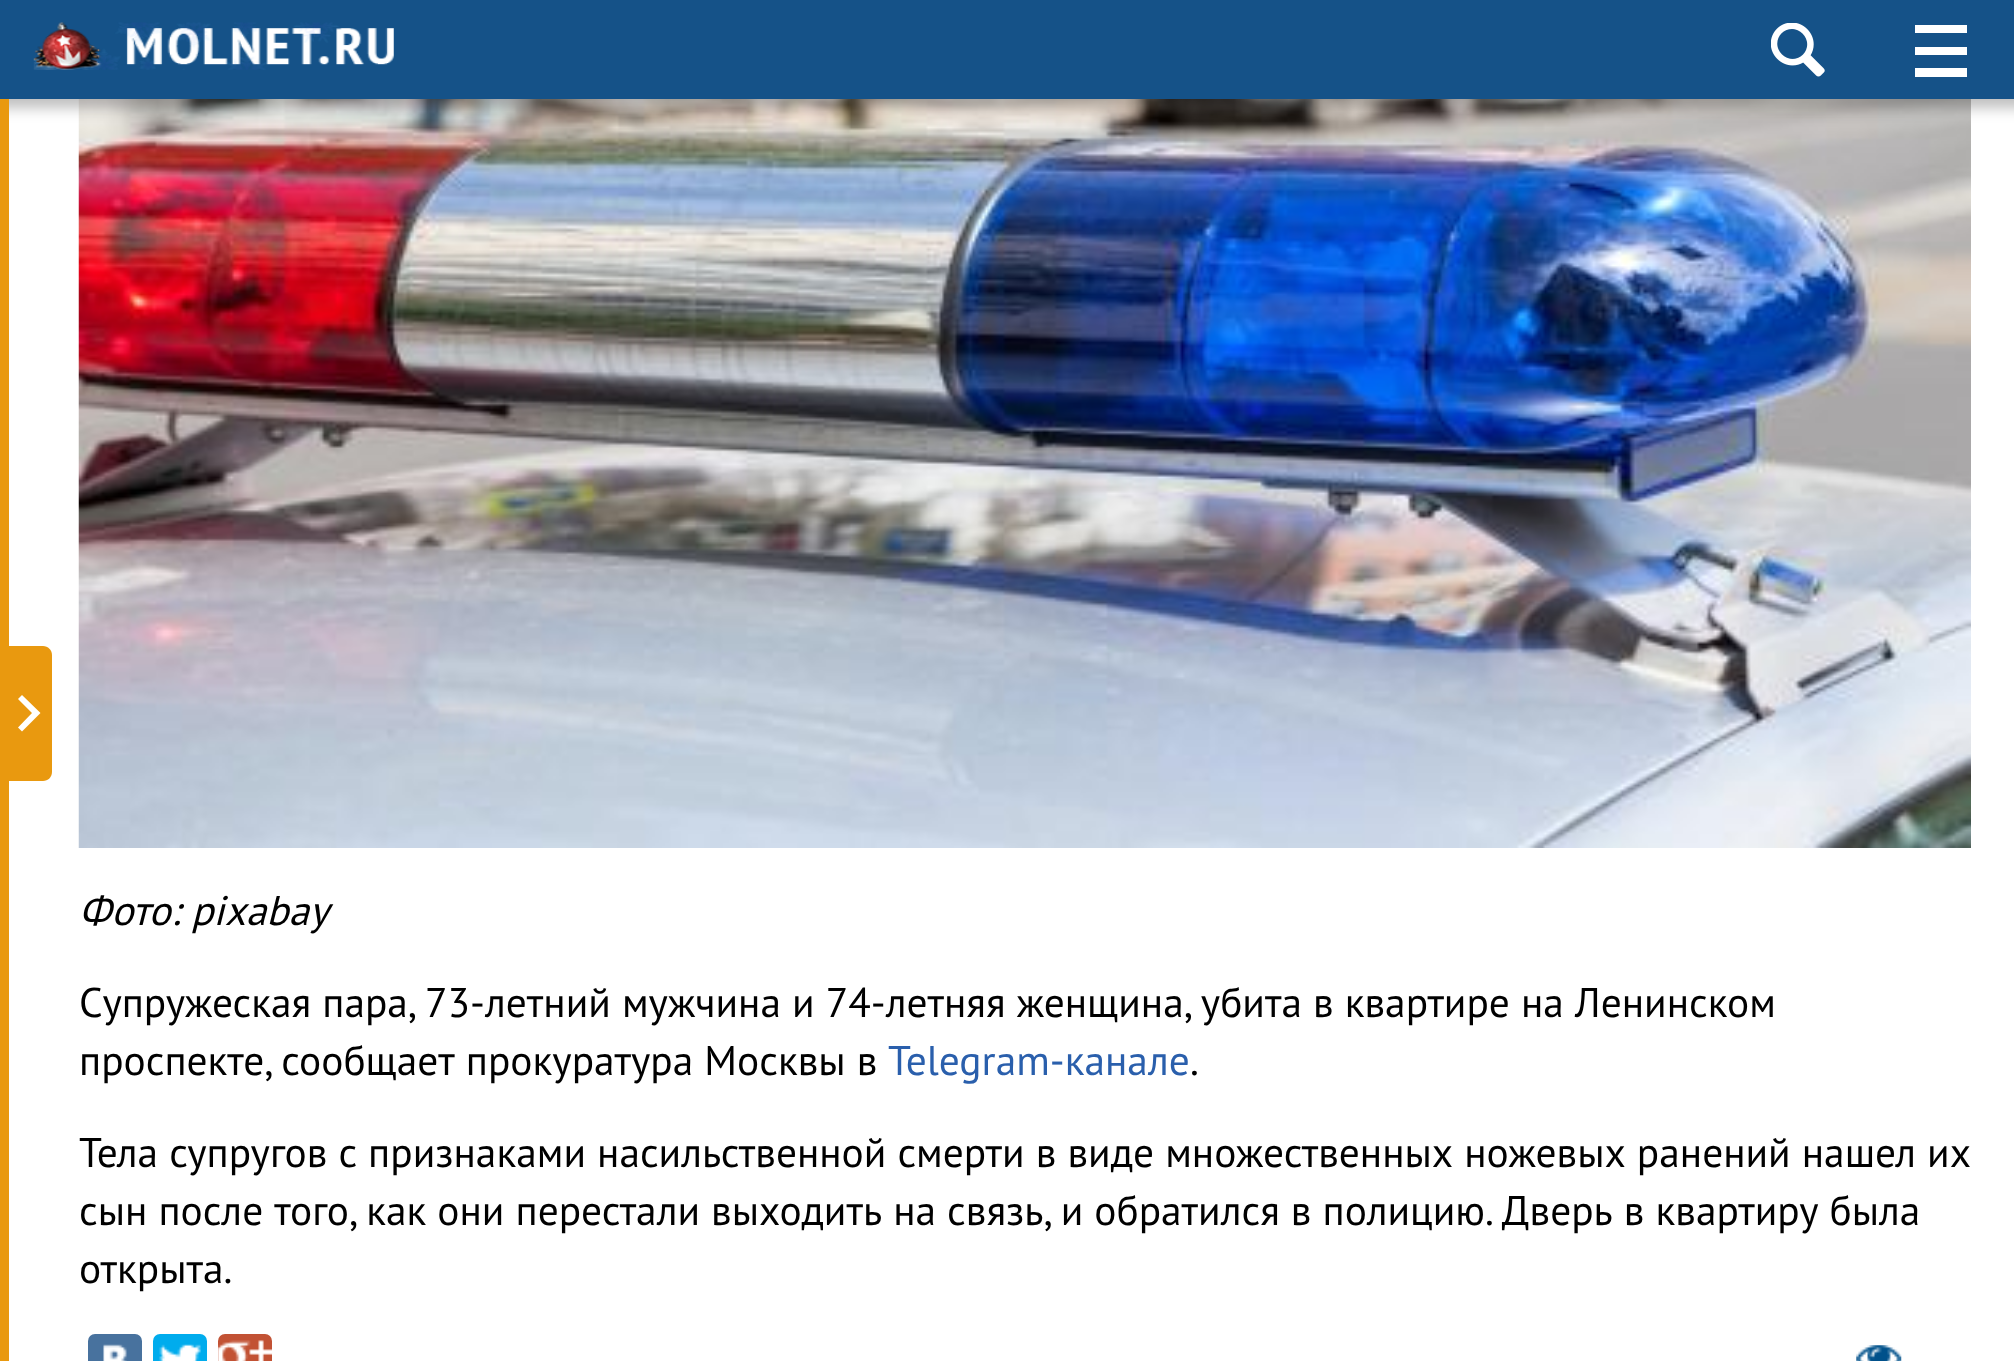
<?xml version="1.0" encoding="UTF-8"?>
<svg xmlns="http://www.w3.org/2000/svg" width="2014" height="1361">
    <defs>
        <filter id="blur1" x="-50%" y="-200%" width="200%" height="500%"><feGaussianBlur stdDeviation="7"/></filter>
    </defs>
    <rect width="100%" height="100%" fill="#FFFFFF"/>
    <image x="78" y="99" width="1893" height="749" href="img_03.png"/>
    <rect x="-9" y="-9" width="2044" height="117" fill="#000000" fill-opacity="0.25" filter="url(#blur1)"/>
    <rect x="0" y="0" width="2014" height="99" fill="#155288"/>
    <image x="33" y="22" width="361" height="48" href="img_01.png"/>
    <image x="1771" y="23" width="54" height="54" href="img_02.png"/>
    <path d="M 1915 25 V 33 H 1967 V 25 Z M 1915 55 H 1967 V 47 H 1915 Z M 1915 77 H 1967 V 68 H 1915 Z" fill="#FFFFFF" fill-rule="evenodd"/>
    <rect x="0" y="99" width="9" height="1262" fill="#E9990F"/>
    <path d="M 0 646 H 43 C 48 646 52 650 52 655 V 772 C 52 777 48 781 43 781 H 0 Z" fill="#E9990F"/>
    <path d="M 22 695 L 18 699 L 32 713 L 18 727.5 L 22 731.5 L 40.5 713 Z" fill="#FFFFFF" fill-rule="evenodd"/>
    <text x="79" y="925" font-family="PT Sans" font-size="41.4" font-style="italic" fill="#000000">Фото: pixabay</text>
    <text font-family="PT Sans" font-size="41.4" fill="#000000">
        <tspan x="79" y="1017">Супружеская пара, 73-летний мужчина и 74-летняя женщина, убита в квартире на Ленинском</tspan>
        <tspan x="79" y="1075">проспекте, сообщает прокуратура Москвы в</tspan>
    </text>
    <text x="888" y="1075" font-family="PT Sans" font-size="41.4" fill="#2A5FAC">Telegram-канале</text>
    <text x="1190" y="1075" font-family="PT Sans" font-size="41.4" fill="#000000">.</text>
    <text font-family="PT Sans" font-size="41.4" fill="#000000">
        <tspan x="79" y="1167">Тела супругов с признаками насильственной смерти в виде множественных ножевых ранений нашел их</tspan>
        <tspan x="79" y="1225">сын после того, как они перестали выходить на связь, и обратился в полицию. Дверь в квартиру была</tspan>
        <tspan x="79" y="1283">открыта.</tspan>
    </text>
    <rect x="88" y="1334" width="54" height="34" rx="7" fill="#48729E"/>
    <image x="103" y="1344" width="24" height="17" href="img_04.png"/>
    <rect x="153" y="1334" width="54" height="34" rx="7" fill="#00ACED"/>
    <image x="159" y="1344" width="42" height="17" href="img_05.png"/>
    <rect x="218" y="1334" width="54" height="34" rx="7" fill="#C25234"/>
    <image x="218" y="1340" width="54" height="21" href="img_06.png"/>
    <image x="1856" y="1345" width="46" height="16" href="img_07.png"/>
</svg>
